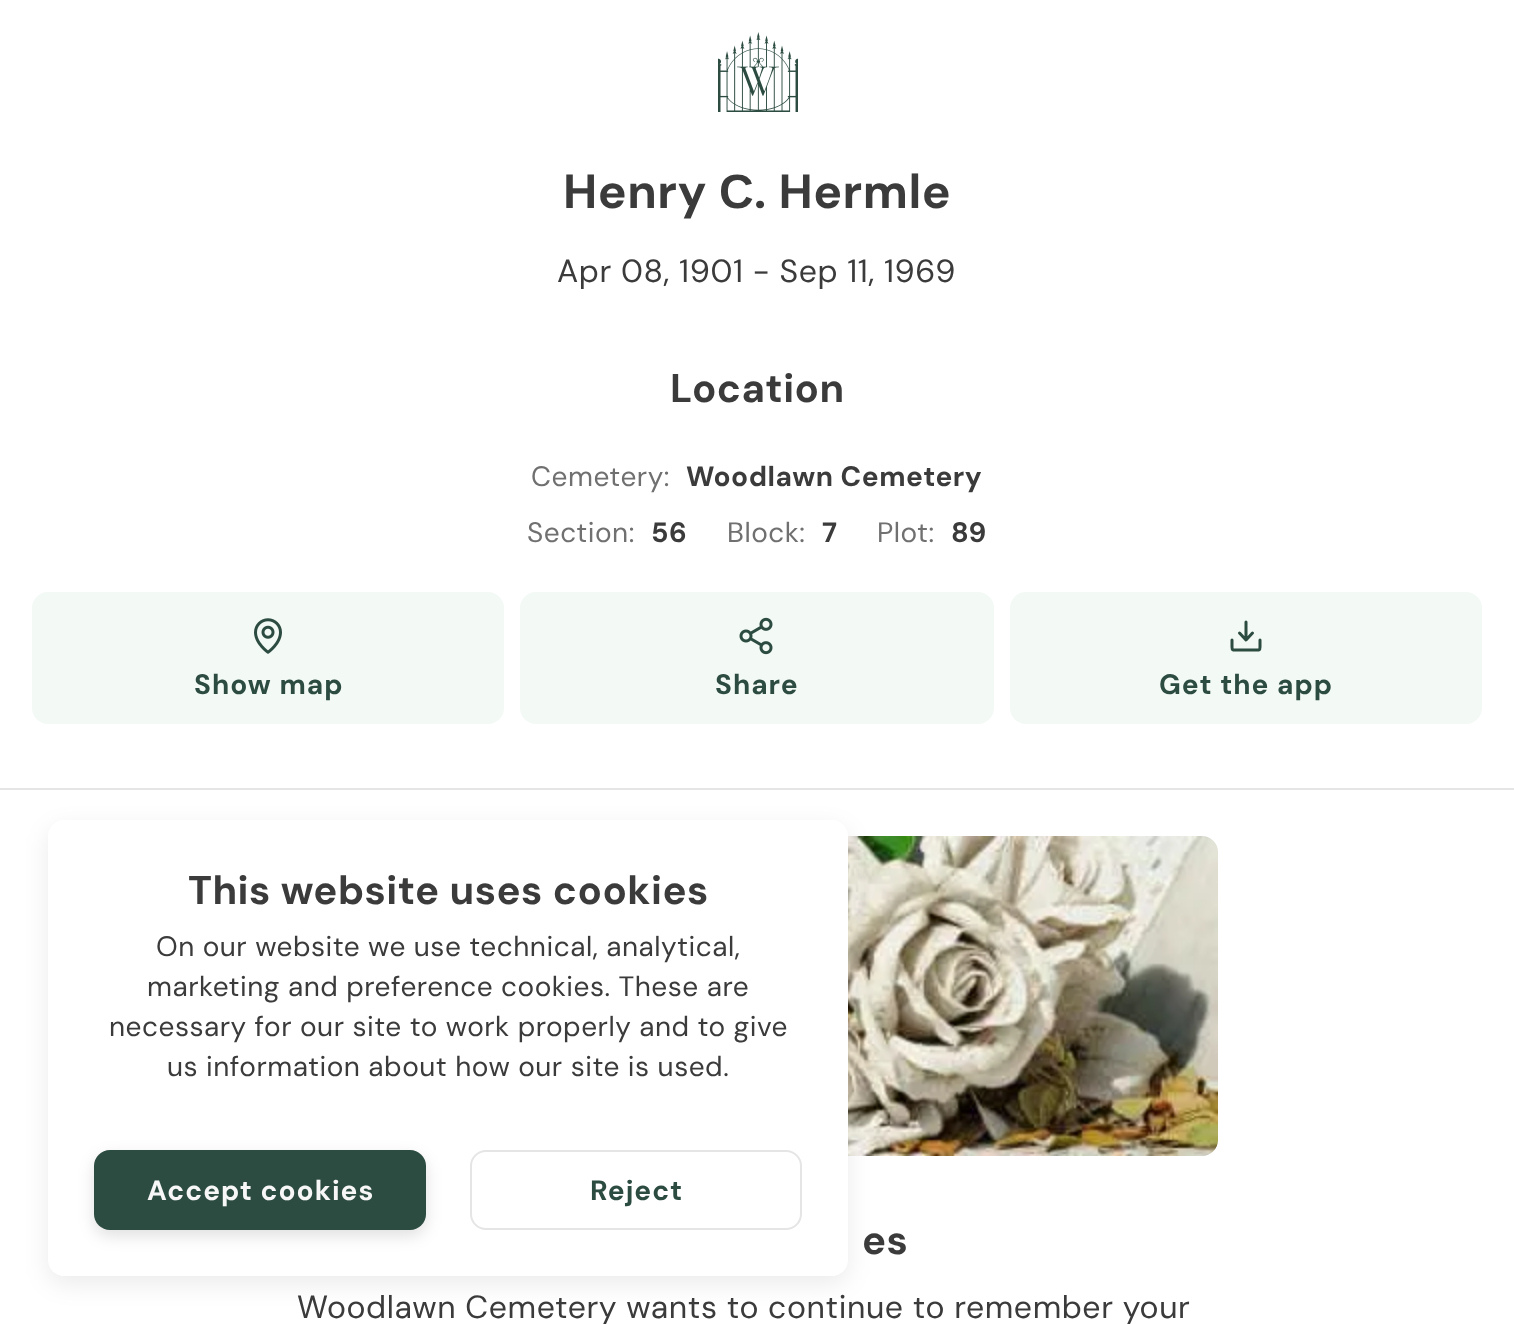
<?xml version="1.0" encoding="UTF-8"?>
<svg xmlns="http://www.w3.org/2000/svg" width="1514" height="1324">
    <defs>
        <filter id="blur1" x="-50%" y="-200%" width="200%" height="500%"><feGaussianBlur stdDeviation="12"/></filter>
        <filter id="blur2" x="-50%" y="-200%" width="200%" height="500%"><feGaussianBlur stdDeviation="8"/></filter>
    </defs>
    <rect width="100%" height="100%" fill="#FFFFFF"/>
    <image x="718" y="32" width="80" height="80" href="img_01.png"/>
    <text x="563" y="208" font-family="DM Sans" font-size="48" font-weight="700" letter-spacing="0.5" fill="#3B3B3B">Henry</text>
    <text x="719" y="208" font-family="Liberation Sans" font-size="48" font-weight="700" letter-spacing="0.5" fill="#3B3B3B">С</text>
    <text x="754" y="208" font-family="DM Sans" font-size="48" font-weight="700" letter-spacing="0.5" fill="#3B3B3B">. Hermle</text>
    <text x="557" y="282" font-family="DM Sans" font-size="32" letter-spacing="0.6" fill="#3B3B3B">Apr 08, 1901 - Sep 11, 1969</text>
    <text x="670" y="402" font-family="DM Sans" font-size="40" font-weight="700" letter-spacing="0.5" fill="#3B3B3B">Location</text>
    <text x="531" y="486" font-family="DM Sans" font-size="28" letter-spacing="0.5" fill="#707070">Cemetery:</text>
    <text x="686" y="486" font-family="DM Sans" font-size="28" font-weight="700" letter-spacing="0.5" fill="#3B3B3B">Woodlawn Cemetery</text>
    <text x="527" y="542" font-family="DM Sans" font-size="28" letter-spacing="0.5" fill="#707070">Section:</text>
    <text x="651" y="542" font-family="DM Sans" font-size="28" font-weight="700" letter-spacing="0.5" fill="#3B3B3B">56</text>
    <text x="727" y="542" font-family="DM Sans" font-size="28" letter-spacing="0.5" fill="#707070">Block:</text>
    <text x="822" y="542" font-family="DM Sans" font-size="28" font-weight="700" letter-spacing="0.5" fill="#3B3B3B">7</text>
    <text x="877" y="542" font-family="DM Sans" font-size="28" letter-spacing="0.5" fill="#707070">Plot:</text>
    <text x="951" y="542" font-family="DM Sans" font-size="28" font-weight="700" letter-spacing="0.5" fill="#3B3B3B">89</text>
    <rect x="32" y="592" width="472" height="132" rx="16" fill="#F3F9F5"/>
    <image x="254" y="618" width="28" height="36" href="img_02.png"/>
    <text x="194" y="694" font-family="DM Sans" font-size="28" font-weight="700" letter-spacing="1" fill="#2C4C41">Show map</text>
    <rect x="520" y="592" width="474" height="132" rx="16" fill="#F3F9F5"/>
    <image x="739" y="617" width="34" height="38" href="img_03.png"/>
    <text x="715" y="694" font-family="DM Sans" font-size="28" font-weight="700" letter-spacing="1" fill="#2C4C41">Share</text>
    <rect x="1010" y="592" width="472" height="132" rx="16" fill="#F3F9F5"/>
    <path d="M 1239.5 633 L 1246 640 L 1252.5 633 M 1246 622 V 639.5 M 1260 640 V 647 C 1260 651 1258.5 650 1254.5 650 H 1237.5 C 1233.5 650 1232 651 1232 647 V 640" fill="none" stroke="#2C4C41" stroke-width="3" stroke-linecap="round" stroke-linejoin="round"/>
    <text x="1159" y="694" font-family="DM Sans" font-size="28" font-weight="700" letter-spacing="1" fill="#2C4C41">Get the app</text>
    <rect x="0" y="788" width="1514" height="2" fill="#E5E5E5"/>
    <image x="848" y="836" width="370" height="320" href="img_04.png"/>
    <text x="862" y="1254" font-family="DM Sans" font-size="40" font-weight="700" letter-spacing="0.5" fill="#3B3B3B">es</text>
    <text x="297" y="1318" font-family="DM Sans" font-size="32" letter-spacing="0.6" fill="#3B3B3B">Woodlawn Cemetery wants to continue to remember your</text>
    <rect x="48" y="828" width="800" height="456" rx="16" fill="#000000" fill-opacity="0.08" filter="url(#blur1)"/>
    <rect x="48" y="820" width="800" height="456" rx="16" fill="#FFFFFF"/>
    <text x="188" y="904" font-family="DM Sans" font-size="40" font-weight="700" letter-spacing="0.5" fill="#3B3B3B">This website uses cookies</text>
    <text x="156" y="956" font-family="DM Sans" font-size="28" letter-spacing="0.5" fill="#3B3B3B">On our website we use technical, analytical,</text>
    <text x="147" y="996" font-family="DM Sans" font-size="28" letter-spacing="0.5" fill="#3B3B3B">marketing and preference cookies. These are</text>
    <text x="109" y="1036" font-family="DM Sans" font-size="28" letter-spacing="0.5" fill="#3B3B3B">necessary for our site to work properly and to give</text>
    <text x="167" y="1076" font-family="DM Sans" font-size="28" letter-spacing="0.5" fill="#3B3B3B">us information about how our site is used.</text>
    <rect x="94" y="1156" width="332" height="80" rx="16" fill="#000000" fill-opacity="0.12" filter="url(#blur2)"/>
    <rect x="94" y="1150" width="332" height="80" rx="16" fill="#2C4C41"/>
    <text x="147" y="1200" font-family="DM Sans" font-size="28" font-weight="700" letter-spacing="1" fill="#F7F7F7">Accept cookies</text>
    <rect x="471" y="1151" width="330" height="78" rx="15" fill="none" stroke="#E5E5E5" stroke-width="2"/>
    <text x="590" y="1200" font-family="DM Sans" font-size="28" font-weight="700" letter-spacing="1" fill="#2C4C41">Reject</text>
</svg>
